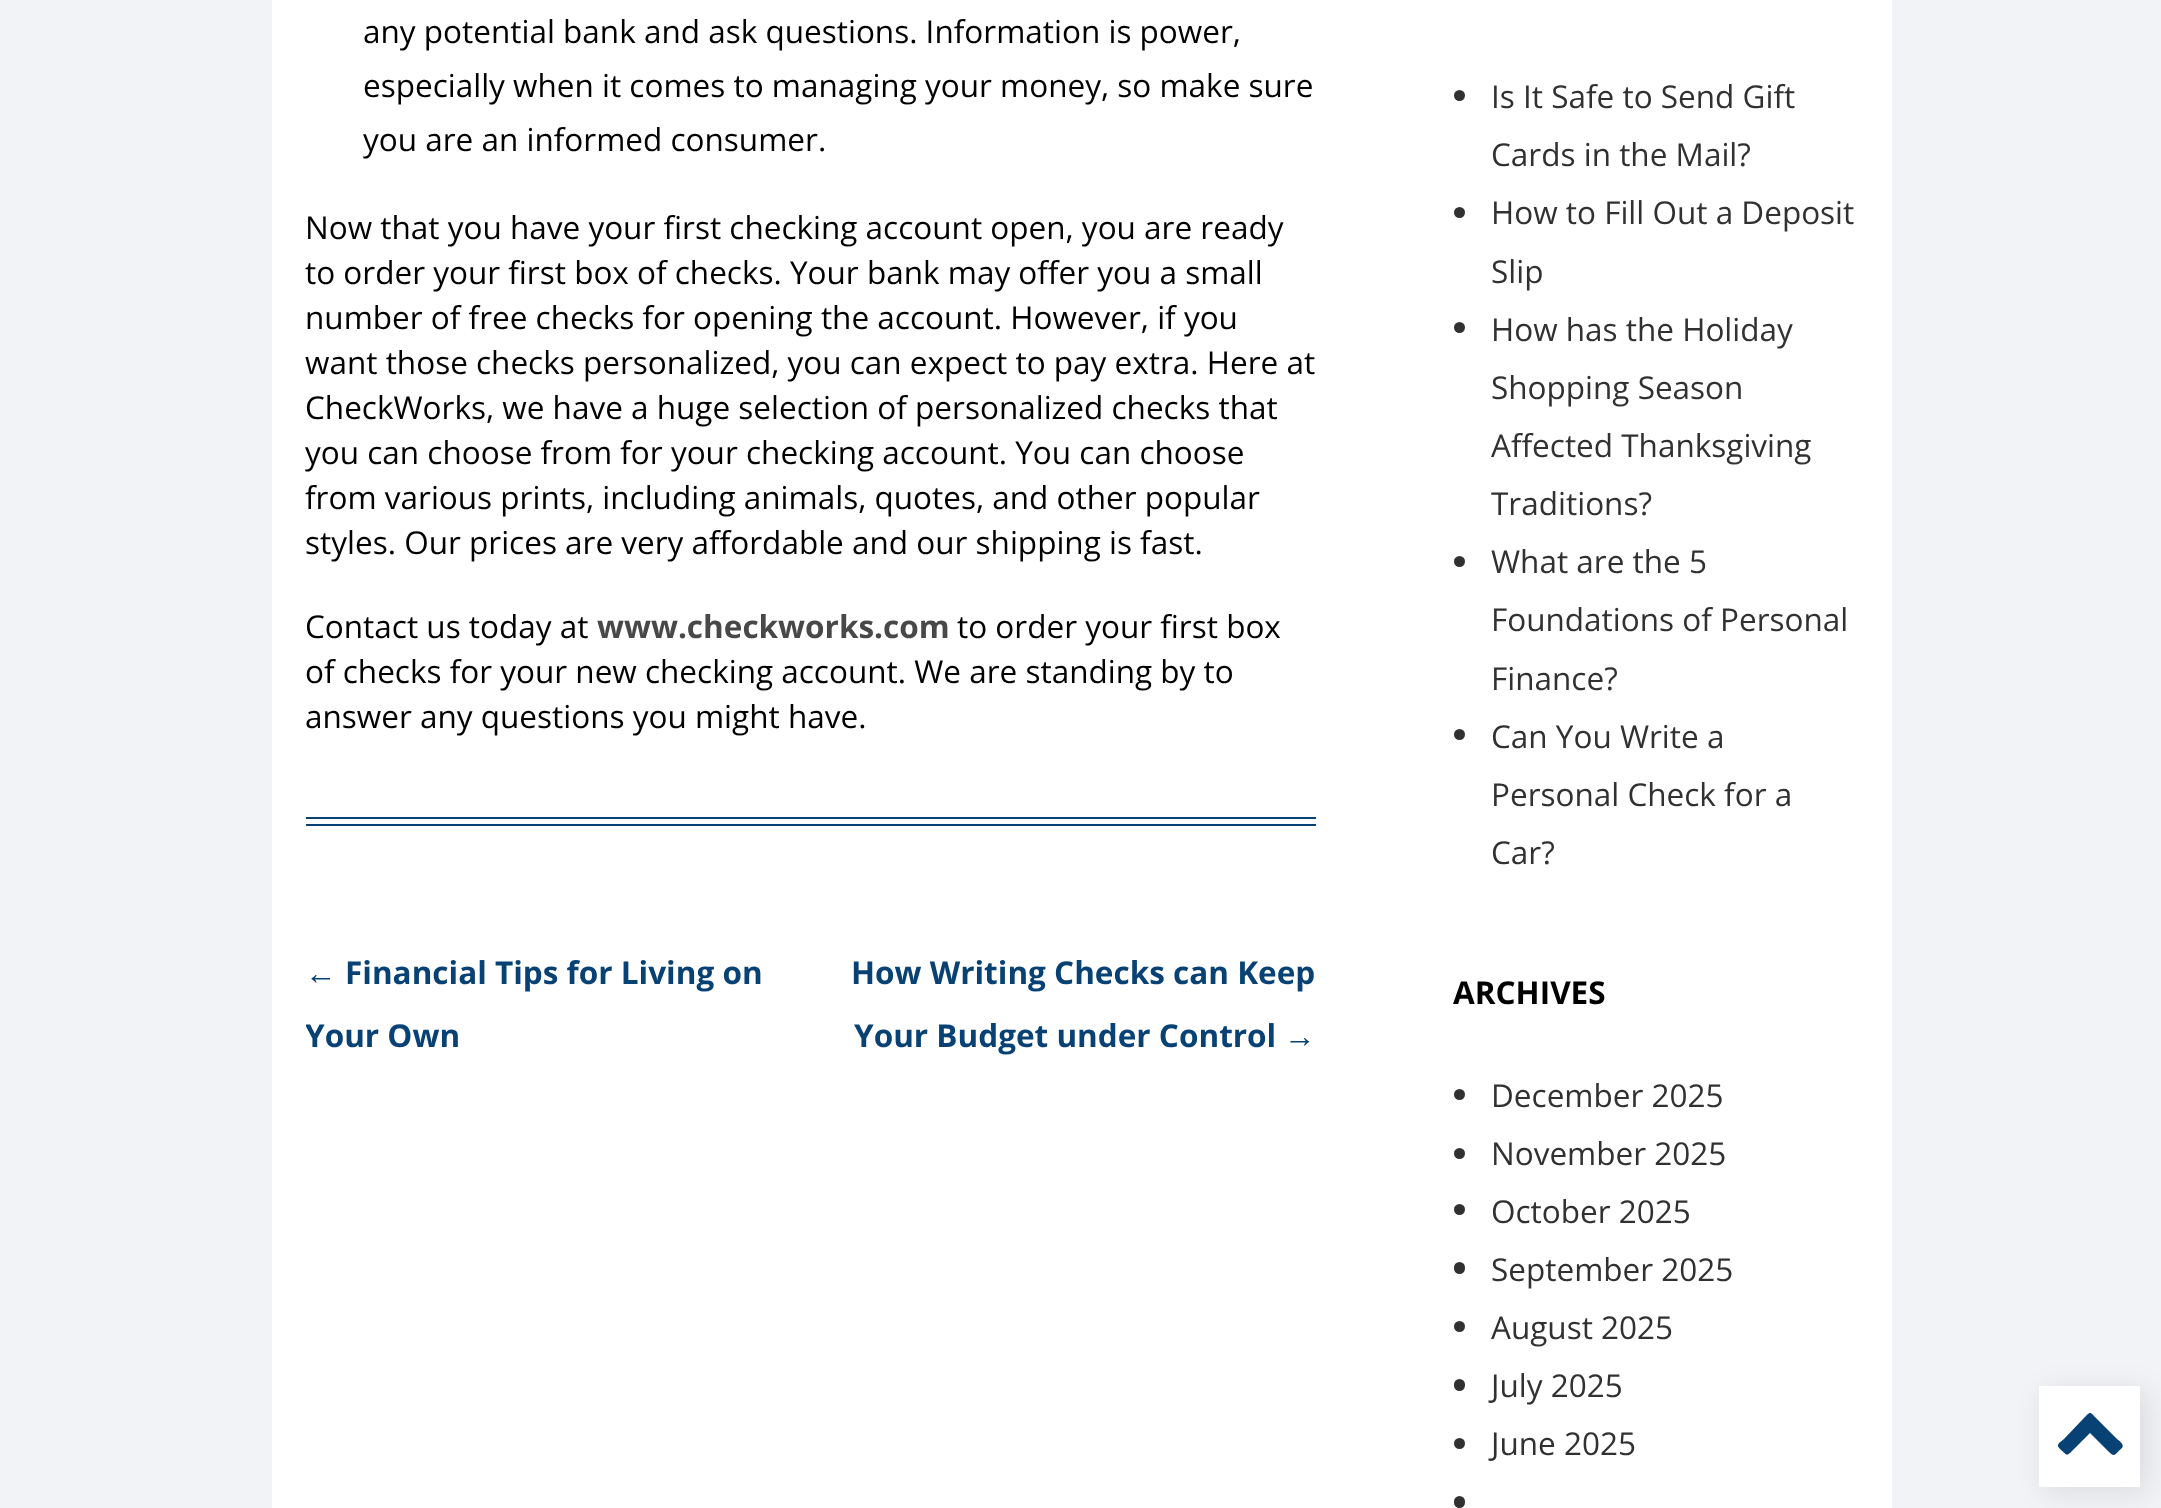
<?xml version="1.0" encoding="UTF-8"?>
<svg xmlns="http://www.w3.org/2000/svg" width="2161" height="1508">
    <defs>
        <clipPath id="clip1"><rect x="306" y="941" width="1010" height="126"/></clipPath>
        <filter id="blur1" x="-50%" y="-200%" width="200%" height="500%"><feGaussianBlur stdDeviation="14.5"/></filter>
    </defs>
    <rect width="100%" height="100%" fill="#F1F3F6"/>
    <rect x="272" y="0" width="1620" height="1508" fill="#FFFFFF"/>
    <rect x="306" y="817" width="1010" height="2" fill="#084174"/>
    <rect x="306" y="824" width="1010" height="2" fill="#084174"/>
    <text font-family="Open Sans" font-size="31.5" fill="#000000">
        <tspan x="363" y="43">any potential bank and ask questions. Information is power,</tspan>
        <tspan x="363" y="97">especially when it comes to managing your money, so make sure</tspan>
        <tspan x="363" y="151">you are an informed consumer.</tspan>
    </text>
    <text font-family="Open Sans" font-size="31.5" fill="#000000">
        <tspan x="305" y="239">Now that you have your first checking account open, you are ready</tspan>
        <tspan x="305" y="284">to order your first box of checks. Your bank may offer you a small</tspan>
        <tspan x="305" y="329">number of free checks for opening the account. However, if you</tspan>
        <tspan x="305" y="374">want those checks personalized, you can expect to pay extra. Here at</tspan>
        <tspan x="305" y="419">CheckWorks, we have a huge selection of personalized checks that</tspan>
        <tspan x="305" y="464">you can choose from for your checking account. You can choose</tspan>
        <tspan x="305" y="509">from various prints, including animals, quotes, and other popular</tspan>
        <tspan x="305" y="554">styles. Our prices are very affordable and our shipping is fast.</tspan>
    </text>
    <text x="305" y="638" font-family="Open Sans" font-size="31.5" fill="#000000">Contact us today at</text>
    <text x="597" y="638" font-family="Open Sans" font-size="31.5" font-weight="700" fill="#484848">www.checkworks.com</text>
    <text x="957" y="638" font-family="Open Sans" font-size="31.5" fill="#000000">to order your first box</text>
    <text font-family="Open Sans" font-size="31.5" fill="#000000">
        <tspan x="305" y="683">of checks for your new checking account. We are standing by to</tspan>
        <tspan x="305" y="728">answer any questions you might have.</tspan>
    </text>
    <text x="305" y="984" font-family="Liberation Sans" font-size="31.5" font-weight="700" fill="#084174">←</text>
    <text x="345" y="984" font-family="Open Sans" font-size="31.5" font-weight="700" fill="#084174">Financial Tips for Living on</text>
    <g clip-path="url(#clip1)">
        <text x="305" y="1047" font-family="Open Sans" font-size="31.5" font-weight="700" fill="#084174">Your Own</text>
    </g>
    <text x="851" y="984" font-family="Open Sans" font-size="31.5" font-weight="700" fill="#084174">How Writing Checks can Keep</text>
    <text x="854" y="1047" font-family="Open Sans" font-size="31.5" font-weight="700" fill="#084174">Your Budget under Control</text>
    <text x="1284" y="1047" font-family="Liberation Sans" font-size="31.5" font-weight="700" fill="#084174">→</text>
    <circle cx="1459.5" cy="95.5" r="5.5" fill="#313131"/>
    <text font-family="Open Sans" font-size="31.5" fill="#313131">
        <tspan x="1491" y="108">Is It Safe to Send Gift</tspan>
        <tspan x="1491" y="166">Cards in the Mail?</tspan>
    </text>
    <circle cx="1459.5" cy="212.5" r="5.5" fill="#313131"/>
    <text font-family="Open Sans" font-size="31.5" fill="#313131">
        <tspan x="1491" y="224">How to Fill Out a Deposit</tspan>
        <tspan x="1491" y="283">Slip</tspan>
    </text>
    <circle cx="1459.5" cy="327.5" r="5.5" fill="#313131"/>
    <text font-family="Open Sans" font-size="31.5" fill="#313131">
        <tspan x="1491" y="341">How has the Holiday</tspan>
        <tspan x="1491" y="399">Shopping Season</tspan>
        <tspan x="1491" y="457">Affected Thanksgiving</tspan>
        <tspan x="1491" y="515">Traditions?</tspan>
    </text>
    <circle cx="1459.5" cy="561.5" r="5.5" fill="#313131"/>
    <text font-family="Open Sans" font-size="31.5" fill="#313131">
        <tspan x="1491" y="573">What are the 5</tspan>
        <tspan x="1491" y="631">Foundations of Personal</tspan>
        <tspan x="1491" y="690">Finance?</tspan>
    </text>
    <circle cx="1459.5" cy="734.5" r="5.5" fill="#313131"/>
    <text font-family="Open Sans" font-size="31.5" fill="#313131">
        <tspan x="1491" y="748">Can You Write a</tspan>
        <tspan x="1491" y="806">Personal Check for a</tspan>
        <tspan x="1491" y="864">Car?</tspan>
    </text>
    <text x="1453" y="1004" font-family="Open Sans" font-size="31.5" font-weight="700" fill="#000000">ARCHIVES</text>
    <circle cx="1459.5" cy="1094.5" r="5.5" fill="#313131"/>
    <text x="1491" y="1107" font-family="Open Sans" font-size="31.5" fill="#313131">December 2025</text>
    <circle cx="1459.5" cy="1153.5" r="5.5" fill="#313131"/>
    <text x="1491" y="1165" font-family="Open Sans" font-size="31.5" fill="#313131">November 2025</text>
    <circle cx="1459.5" cy="1209.5" r="5.5" fill="#313131"/>
    <text x="1491" y="1223" font-family="Open Sans" font-size="31.5" fill="#313131">October 2025</text>
    <rect x="1454" y="1262" width="11" height="12" rx="5.5" fill="#313131"/>
    <text x="1491" y="1281" font-family="Open Sans" font-size="31.5" fill="#313131">September 2025</text>
    <circle cx="1459.5" cy="1326.5" r="5.5" fill="#313131"/>
    <text x="1491" y="1339" font-family="Open Sans" font-size="31.5" fill="#313131">August 2025</text>
    <rect x="1454" y="1379" width="11" height="12" rx="5.5" fill="#313131"/>
    <text x="1491" y="1397" font-family="Open Sans" font-size="31.5" fill="#313131">July 2025</text>
    <circle cx="1459.5" cy="1443.5" r="5.5" fill="#313131"/>
    <text x="1491" y="1455" font-family="Open Sans" font-size="31.5" fill="#313131">June 2025</text>
    <rect x="1454" y="1496" width="11" height="12" rx="5.5" fill="#313131"/>
    <rect x="2045" y="1391" width="102" height="101" fill="#000000" fill-opacity="0.1" filter="url(#blur1)"/>
    <rect x="2039" y="1386" width="101" height="101" fill="#FFFFFF"/>
    <path d="M 2122 1448 C 2114 1455 2115 1458 2108 1451 L 2090 1433 L 2072 1451 C 2066 1457 2067 1455 2060 1449 C 2055 1444 2060 1443 2064 1439 L 2083 1419 C 2091 1411 2089 1411 2097 1419 L 2117 1439 C 2118 1440 2125 1444 2122 1448 Z" fill="#084174"/>
</svg>
